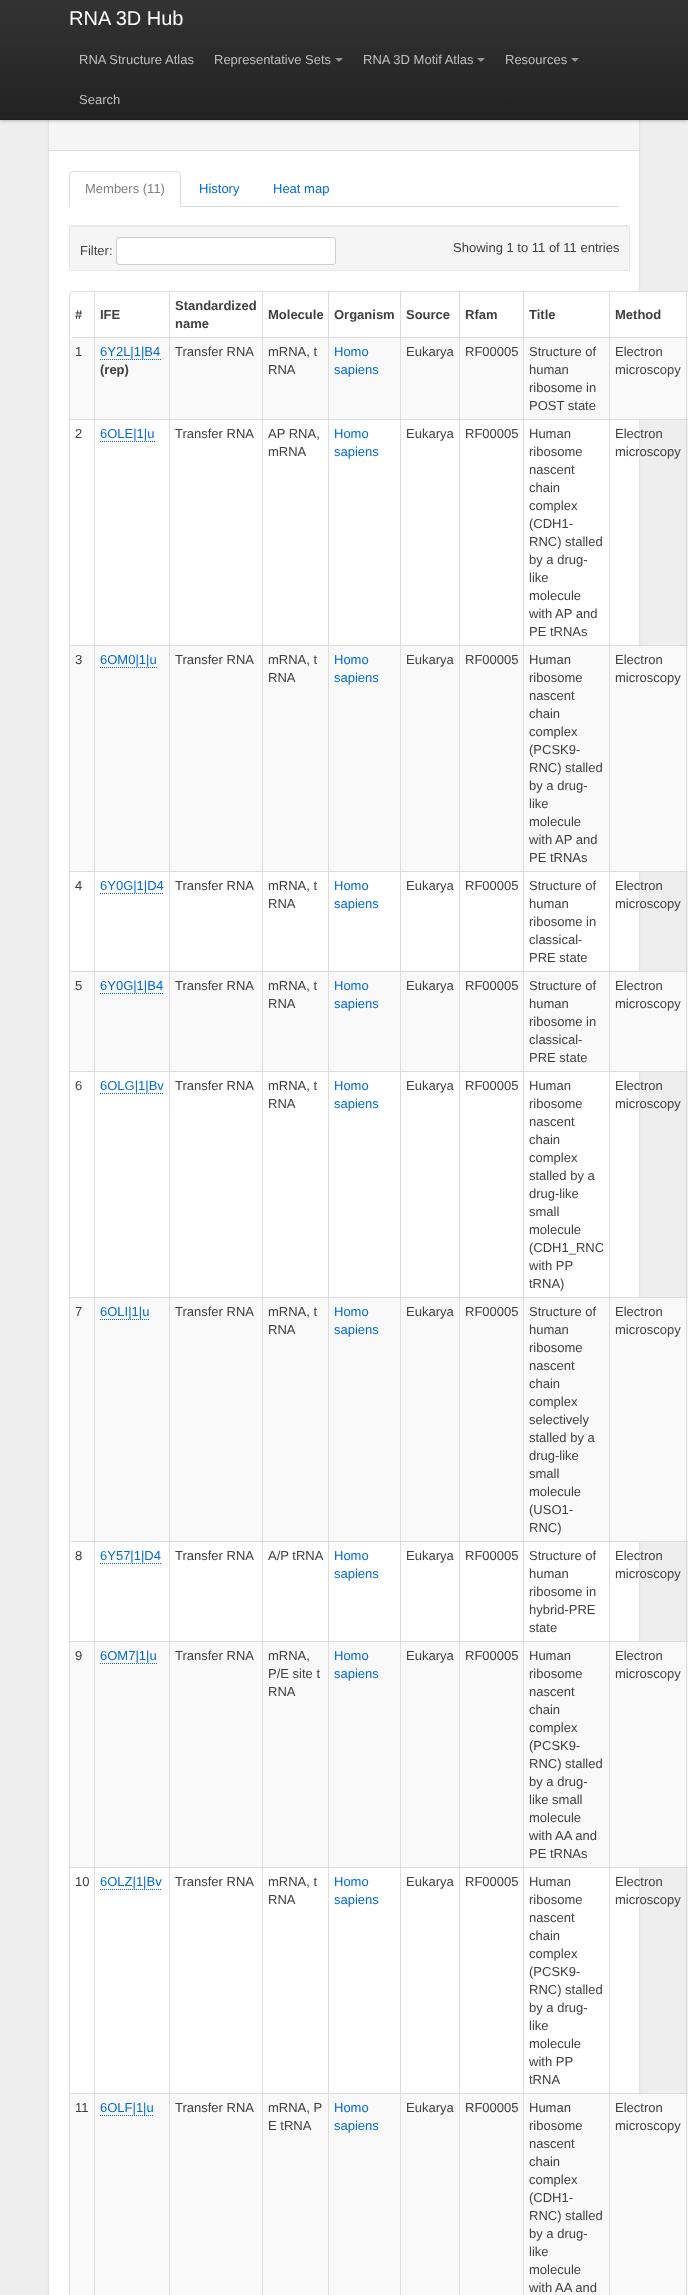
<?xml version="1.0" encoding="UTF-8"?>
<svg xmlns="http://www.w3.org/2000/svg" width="688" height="2295">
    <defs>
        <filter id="blur1" x="-50%" y="-200%" width="200%" height="500%"><feGaussianBlur stdDeviation="1"/></filter>
        <filter id="blur2" x="-50%" y="-200%" width="200%" height="500%"><feGaussianBlur stdDeviation="1.5"/></filter>
        <linearGradient id="g1" gradientUnits="userSpaceOnUse" x1="344" y1="0" x2="344" y2="120"><stop offset="0" stop-color="#333333"/><stop offset="1" stop-color="#222222"/></linearGradient>
    </defs>
    <rect width="100%" height="100%" fill="#EEEEEE"/>
    <rect x="49" y="41" width="590" height="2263" rx="6" fill="#000000" fill-opacity="0.15" filter="url(#blur1)"/>
    <rect x="49" y="120" width="590" height="30" fill="#F5F5F5"/>
    <rect x="0" y="1" width="688" height="120" fill="#000000" fill-opacity="0.25" filter="url(#blur2)"/>
    <rect x="0" y="0" width="688" height="119" fill="url(#g1)"/>
    <rect x="0" y="119" width="688" height="1" fill="#1F1F1F"/>
    <text x="69" y="25" font-family="Liberation Sans" font-size="20" fill="#FFFFFF">RNA 3D Hub</text>
    <text x="79" y="64" font-family="Liberation Sans" font-size="13" fill="#BFBFBF">RNA Structure Atlas</text>
    <text x="214" y="64" font-family="Liberation Sans" font-size="13" fill="#BFBFBF">Representative Sets</text>
    <path d="M 335 58 H 343 L 339 62 Z" fill="#959595"/>
    <text x="363" y="64" font-family="Liberation Sans" font-size="13" fill="#BFBFBF">RNA 3D Motif Atlas</text>
    <path d="M 477 58 H 485 L 481 62 Z" fill="#959595"/>
    <text x="505" y="64" font-family="Liberation Sans" font-size="13" fill="#BFBFBF">Resources</text>
    <path d="M 571 58 H 579 L 575 62 Z" fill="#959595"/>
    <text x="79" y="104" font-family="Liberation Sans" font-size="13" fill="#BFBFBF">Search</text>
    <rect x="49" y="151" width="590" height="2144" fill="#FFFFFF"/>
    <rect x="49" y="150" width="590" height="1" fill="#DDDDDD"/>
    <rect x="181" y="206" width="438" height="1" fill="#DDDDDD"/>
    <path d="M 73 171 L 70 172 L 71 173 L 73 172 H 177 L 179 173 L 180 172 L 177 171 Z" fill="#DDDDDD"/>
    <path d="M 181 207 V 175 C 181 174 180.5 173 180 172 L 179 173 C 180 173 180 174 180 175 V 206 Z" fill="#DDDDDD"/>
    <path d="M 69 207 L 70 206 V 175 C 70 174 70 173 71 173 L 70 172 C 69.5 173 69 174 69 175 Z" fill="#DDDDDD"/>
    <text x="85" y="193" font-family="Liberation Sans" font-size="13" fill="#808080">Members (11)</text>
    <text x="199" y="193" font-family="Liberation Sans" font-size="13" fill="#0069D6">History</text>
    <text x="273" y="193" font-family="Liberation Sans" font-size="13" fill="#0069D6">Heat map</text>
    <rect x="69" y="225" width="561" height="46" rx="4" fill="#F5F5F5"/>
    <path d="M 73 227 H 626 C 628 227 629 228 629 230 V 229 C 629 227 628 226 626 226 H 73 C 71 226 70 227 70 229 V 230 C 70 228 71 227 73 227 Z" fill="#E9E9E9"/>
    <rect x="69.5" y="225.5" width="560" height="45" fill="none" stroke="#000000" stroke-opacity="0.05"/>
    <text x="80" y="255" font-family="Liberation Sans" font-size="13" fill="#404040">Filter:</text>
    <rect x="116.5" y="237.5" width="219" height="27" rx="2.5" fill="#FFFFFF" stroke="#CCCCCC"/>
    <text x="453" y="252" font-family="Liberation Sans" font-size="13" fill="#404040">Showing 1 to 11 of 11 entries</text>
    <rect x="69.5" y="291.5" width="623" height="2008" rx="3.5" fill="none" stroke="#DDDDDD"/>
    <text x="75" y="319" font-family="Liberation Sans" font-size="13" font-weight="700" fill="#404040">#</text>
    <rect x="94" y="292" width="1" height="45" fill="#DDDDDD"/>
    <text x="100" y="319" font-family="Liberation Sans" font-size="13" font-weight="700" fill="#404040">IFE</text>
    <rect x="169" y="292" width="1" height="45" fill="#DDDDDD"/>
    <text font-family="Liberation Sans" font-size="13" font-weight="700" fill="#404040">
        <tspan x="175" y="310">Standardized</tspan>
        <tspan x="175" y="328">name</tspan>
    </text>
    <rect x="262" y="292" width="1" height="45" fill="#DDDDDD"/>
    <text x="268" y="319" font-family="Liberation Sans" font-size="13" font-weight="700" fill="#404040">Molecule</text>
    <rect x="328" y="292" width="1" height="45" fill="#DDDDDD"/>
    <text x="334" y="319" font-family="Liberation Sans" font-size="13" font-weight="700" fill="#404040">Organism</text>
    <rect x="400" y="292" width="1" height="45" fill="#DDDDDD"/>
    <text x="406" y="319" font-family="Liberation Sans" font-size="13" font-weight="700" fill="#404040">Source</text>
    <rect x="459" y="292" width="1" height="45" fill="#DDDDDD"/>
    <text x="465" y="319" font-family="Liberation Sans" font-size="13" font-weight="700" fill="#404040">Rfam</text>
    <rect x="523" y="292" width="1" height="45" fill="#DDDDDD"/>
    <text x="529" y="319" font-family="Liberation Sans" font-size="13" font-weight="700" fill="#404040">Title</text>
    <rect x="639" y="292" width="47" height="45" fill="#FFFFFF"/>
    <rect x="609" y="292" width="1" height="45" fill="#DDDDDD"/>
    <text x="615" y="319" font-family="Liberation Sans" font-size="13" font-weight="700" fill="#404040">Method</text>
    <rect x="687" y="292" width="1" height="45" fill="#FFFFFF"/>
    <rect x="686" y="292" width="1" height="45" fill="#DDDDDD"/>
    <path d="M 74 337 H 94 V 419 H 70 V 341 C 70 339 72 337 74 337 Z" fill="#F9F9F9"/>
    <rect x="72" y="337" width="614" height="1" fill="#DDDDDD"/>
    <text x="75" y="356" font-family="Liberation Sans" font-size="13" fill="#404040">1</text>
    <rect x="95" y="338" width="74" height="81" fill="#F9F9F9"/>
    <rect x="94" y="337" width="1" height="82" fill="#DDDDDD"/>
    <text x="100" y="356" font-family="Liberation Sans" font-size="13" fill="#0069D6">6Y2L|1|B4</text>
    <path d="M 100 359.5 H 161" fill="none" stroke="#0069D6" stroke-dasharray="1 1"/>
    <text x="100" y="374" font-family="Liberation Sans" font-size="13" font-weight="700" fill="#404040">(rep)</text>
    <rect x="170" y="338" width="92" height="81" fill="#F9F9F9"/>
    <rect x="169" y="337" width="1" height="82" fill="#DDDDDD"/>
    <text x="175" y="356" font-family="Liberation Sans" font-size="13" fill="#404040">Transfer RNA</text>
    <rect x="263" y="338" width="65" height="81" fill="#F9F9F9"/>
    <rect x="262" y="337" width="1" height="82" fill="#DDDDDD"/>
    <text font-family="Liberation Sans" font-size="13" fill="#404040">
        <tspan x="268" y="356">mRNA, t</tspan>
        <tspan x="268" y="374">RNA</tspan>
    </text>
    <rect x="329" y="338" width="71" height="81" fill="#F9F9F9"/>
    <rect x="328" y="337" width="1" height="82" fill="#DDDDDD"/>
    <text font-family="Liberation Sans" font-size="13" fill="#0069D6">
        <tspan x="334" y="356">Homo</tspan>
        <tspan x="334" y="374">sapiens</tspan>
    </text>
    <rect x="401" y="338" width="58" height="81" fill="#F9F9F9"/>
    <rect x="400" y="337" width="1" height="82" fill="#DDDDDD"/>
    <text x="406" y="356" font-family="Liberation Sans" font-size="13" fill="#404040">Eukarya</text>
    <rect x="460" y="338" width="63" height="81" fill="#F9F9F9"/>
    <rect x="459" y="337" width="1" height="82" fill="#DDDDDD"/>
    <text x="465" y="356" font-family="Liberation Sans" font-size="13" fill="#404040">RF00005</text>
    <rect x="524" y="338" width="85" height="81" fill="#F9F9F9"/>
    <rect x="523" y="337" width="1" height="82" fill="#DDDDDD"/>
    <text font-family="Liberation Sans" font-size="13" fill="#404040">
        <tspan x="529" y="356">Structure of</tspan>
        <tspan x="529" y="374">human</tspan>
        <tspan x="529" y="392">ribosome in</tspan>
        <tspan x="529" y="410">POST state</tspan>
    </text>
    <rect x="610" y="338" width="76" height="81" fill="#F9F9F9"/>
    <rect x="609" y="337" width="1" height="82" fill="#DDDDDD"/>
    <text font-family="Liberation Sans" font-size="13" fill="#404040">
        <tspan x="615" y="356">Electron</tspan>
        <tspan x="615" y="374">microscopy</tspan>
    </text>
    <rect x="687" y="337" width="1" height="82" fill="#F9F9F9"/>
    <rect x="686" y="337" width="2" height="1" fill="#DDDDDD"/>
    <rect x="686" y="337" width="1" height="82" fill="#DDDDDD"/>
    <rect x="70" y="419" width="618" height="1" fill="#DDDDDD"/>
    <text x="75" y="438" font-family="Liberation Sans" font-size="13" fill="#404040">2</text>
    <rect x="94" y="419" width="1" height="226" fill="#DDDDDD"/>
    <text x="100" y="438" font-family="Liberation Sans" font-size="13" fill="#0069D6">6OLE|1|u</text>
    <path d="M 100 441.5 H 155" fill="none" stroke="#0069D6" stroke-dasharray="1 1"/>
    <rect x="169" y="419" width="1" height="226" fill="#DDDDDD"/>
    <text x="175" y="438" font-family="Liberation Sans" font-size="13" fill="#404040">Transfer RNA</text>
    <rect x="262" y="419" width="1" height="226" fill="#DDDDDD"/>
    <text font-family="Liberation Sans" font-size="13" fill="#404040">
        <tspan x="268" y="438">AP RNA,</tspan>
        <tspan x="268" y="456">mRNA</tspan>
    </text>
    <rect x="328" y="419" width="1" height="226" fill="#DDDDDD"/>
    <text font-family="Liberation Sans" font-size="13" fill="#0069D6">
        <tspan x="334" y="438">Homo</tspan>
        <tspan x="334" y="456">sapiens</tspan>
    </text>
    <rect x="400" y="419" width="1" height="226" fill="#DDDDDD"/>
    <text x="406" y="438" font-family="Liberation Sans" font-size="13" fill="#404040">Eukarya</text>
    <rect x="459" y="419" width="1" height="226" fill="#DDDDDD"/>
    <text x="465" y="438" font-family="Liberation Sans" font-size="13" fill="#404040">RF00005</text>
    <rect x="523" y="419" width="1" height="226" fill="#DDDDDD"/>
    <text font-family="Liberation Sans" font-size="13" fill="#404040">
        <tspan x="529" y="438">Human</tspan>
        <tspan x="529" y="456">ribosome</tspan>
        <tspan x="529" y="474">nascent</tspan>
        <tspan x="529" y="492">chain</tspan>
        <tspan x="529" y="510">complex</tspan>
        <tspan x="529" y="528">(CDH1-</tspan>
        <tspan x="529" y="546">RNC) stalled</tspan>
        <tspan x="529" y="564">by a drug-</tspan>
        <tspan x="529" y="582">like</tspan>
        <tspan x="529" y="600">molecule</tspan>
        <tspan x="529" y="618">with AP and</tspan>
        <tspan x="529" y="636">PE tRNAs</tspan>
    </text>
    <rect x="609" y="419" width="1" height="226" fill="#DDDDDD"/>
    <text font-family="Liberation Sans" font-size="13" fill="#404040">
        <tspan x="615" y="438">Electron</tspan>
        <tspan x="615" y="456">microscopy</tspan>
    </text>
    <rect x="686" y="419" width="1" height="226" fill="#DDDDDD"/>
    <rect x="70" y="646" width="24" height="225" fill="#F9F9F9"/>
    <rect x="70" y="645" width="616" height="1" fill="#DDDDDD"/>
    <text x="75" y="664" font-family="Liberation Sans" font-size="13" fill="#404040">3</text>
    <rect x="95" y="646" width="74" height="225" fill="#F9F9F9"/>
    <rect x="94" y="645" width="1" height="226" fill="#DDDDDD"/>
    <text x="100" y="664" font-family="Liberation Sans" font-size="13" fill="#0069D6">6OM0|1|u</text>
    <path d="M 100 667.5 H 157" fill="none" stroke="#0069D6" stroke-dasharray="1 1"/>
    <rect x="170" y="646" width="92" height="225" fill="#F9F9F9"/>
    <rect x="169" y="645" width="1" height="226" fill="#DDDDDD"/>
    <text x="175" y="664" font-family="Liberation Sans" font-size="13" fill="#404040">Transfer RNA</text>
    <rect x="263" y="646" width="65" height="225" fill="#F9F9F9"/>
    <rect x="262" y="645" width="1" height="226" fill="#DDDDDD"/>
    <text font-family="Liberation Sans" font-size="13" fill="#404040">
        <tspan x="268" y="664">mRNA, t</tspan>
        <tspan x="268" y="682">RNA</tspan>
    </text>
    <rect x="329" y="646" width="71" height="225" fill="#F9F9F9"/>
    <rect x="328" y="645" width="1" height="226" fill="#DDDDDD"/>
    <text font-family="Liberation Sans" font-size="13" fill="#0069D6">
        <tspan x="334" y="664">Homo</tspan>
        <tspan x="334" y="682">sapiens</tspan>
    </text>
    <rect x="401" y="646" width="58" height="225" fill="#F9F9F9"/>
    <rect x="400" y="645" width="1" height="226" fill="#DDDDDD"/>
    <text x="406" y="664" font-family="Liberation Sans" font-size="13" fill="#404040">Eukarya</text>
    <rect x="460" y="646" width="63" height="225" fill="#F9F9F9"/>
    <rect x="459" y="645" width="1" height="226" fill="#DDDDDD"/>
    <text x="465" y="664" font-family="Liberation Sans" font-size="13" fill="#404040">RF00005</text>
    <rect x="524" y="646" width="85" height="225" fill="#F9F9F9"/>
    <rect x="523" y="645" width="1" height="226" fill="#DDDDDD"/>
    <text font-family="Liberation Sans" font-size="13" fill="#404040">
        <tspan x="529" y="664">Human</tspan>
        <tspan x="529" y="682">ribosome</tspan>
        <tspan x="529" y="700">nascent</tspan>
        <tspan x="529" y="718">chain</tspan>
        <tspan x="529" y="736">complex</tspan>
        <tspan x="529" y="754">(PCSK9-</tspan>
        <tspan x="529" y="772">RNC) stalled</tspan>
        <tspan x="529" y="790">by a drug-</tspan>
        <tspan x="529" y="808">like</tspan>
        <tspan x="529" y="826">molecule</tspan>
        <tspan x="529" y="844">with AP and</tspan>
        <tspan x="529" y="862">PE tRNAs</tspan>
    </text>
    <rect x="610" y="646" width="76" height="225" fill="#F9F9F9"/>
    <rect x="609" y="645" width="1" height="226" fill="#DDDDDD"/>
    <text font-family="Liberation Sans" font-size="13" fill="#404040">
        <tspan x="615" y="664">Electron</tspan>
        <tspan x="615" y="682">microscopy</tspan>
    </text>
    <rect x="687" y="645" width="1" height="226" fill="#F9F9F9"/>
    <rect x="686" y="645" width="2" height="1" fill="#DDDDDD"/>
    <rect x="686" y="645" width="1" height="226" fill="#DDDDDD"/>
    <rect x="70" y="871" width="618" height="1" fill="#DDDDDD"/>
    <text x="75" y="890" font-family="Liberation Sans" font-size="13" fill="#404040">4</text>
    <rect x="94" y="871" width="1" height="100" fill="#DDDDDD"/>
    <text x="100" y="890" font-family="Liberation Sans" font-size="13" fill="#0069D6">6Y0G|1|D4</text>
    <path d="M 100 893.5 H 164" fill="none" stroke="#0069D6" stroke-dasharray="1 1"/>
    <rect x="169" y="871" width="1" height="100" fill="#DDDDDD"/>
    <text x="175" y="890" font-family="Liberation Sans" font-size="13" fill="#404040">Transfer RNA</text>
    <rect x="262" y="871" width="1" height="100" fill="#DDDDDD"/>
    <text font-family="Liberation Sans" font-size="13" fill="#404040">
        <tspan x="268" y="890">mRNA, t</tspan>
        <tspan x="268" y="908">RNA</tspan>
    </text>
    <rect x="328" y="871" width="1" height="100" fill="#DDDDDD"/>
    <text font-family="Liberation Sans" font-size="13" fill="#0069D6">
        <tspan x="334" y="890">Homo</tspan>
        <tspan x="334" y="908">sapiens</tspan>
    </text>
    <rect x="400" y="871" width="1" height="100" fill="#DDDDDD"/>
    <text x="406" y="890" font-family="Liberation Sans" font-size="13" fill="#404040">Eukarya</text>
    <rect x="459" y="871" width="1" height="100" fill="#DDDDDD"/>
    <text x="465" y="890" font-family="Liberation Sans" font-size="13" fill="#404040">RF00005</text>
    <rect x="523" y="871" width="1" height="100" fill="#DDDDDD"/>
    <text font-family="Liberation Sans" font-size="13" fill="#404040">
        <tspan x="529" y="890">Structure of</tspan>
        <tspan x="529" y="908">human</tspan>
        <tspan x="529" y="926">ribosome in</tspan>
        <tspan x="529" y="944">classical-</tspan>
        <tspan x="529" y="962">PRE state</tspan>
    </text>
    <rect x="609" y="871" width="1" height="100" fill="#DDDDDD"/>
    <text font-family="Liberation Sans" font-size="13" fill="#404040">
        <tspan x="615" y="890">Electron</tspan>
        <tspan x="615" y="908">microscopy</tspan>
    </text>
    <rect x="686" y="871" width="1" height="100" fill="#DDDDDD"/>
    <rect x="70" y="972" width="24" height="99" fill="#F9F9F9"/>
    <rect x="70" y="971" width="616" height="1" fill="#DDDDDD"/>
    <text x="75" y="990" font-family="Liberation Sans" font-size="13" fill="#404040">5</text>
    <rect x="95" y="972" width="74" height="99" fill="#F9F9F9"/>
    <rect x="94" y="971" width="1" height="100" fill="#DDDDDD"/>
    <text x="100" y="990" font-family="Liberation Sans" font-size="13" fill="#0069D6">6Y0G|1|B4</text>
    <path d="M 100 993.5 H 163" fill="none" stroke="#0069D6" stroke-dasharray="1 1"/>
    <rect x="170" y="972" width="92" height="99" fill="#F9F9F9"/>
    <rect x="169" y="971" width="1" height="100" fill="#DDDDDD"/>
    <text x="175" y="990" font-family="Liberation Sans" font-size="13" fill="#404040">Transfer RNA</text>
    <rect x="263" y="972" width="65" height="99" fill="#F9F9F9"/>
    <rect x="262" y="971" width="1" height="100" fill="#DDDDDD"/>
    <text font-family="Liberation Sans" font-size="13" fill="#404040">
        <tspan x="268" y="990">mRNA, t</tspan>
        <tspan x="268" y="1008">RNA</tspan>
    </text>
    <rect x="329" y="972" width="71" height="99" fill="#F9F9F9"/>
    <rect x="328" y="971" width="1" height="100" fill="#DDDDDD"/>
    <text font-family="Liberation Sans" font-size="13" fill="#0069D6">
        <tspan x="334" y="990">Homo</tspan>
        <tspan x="334" y="1008">sapiens</tspan>
    </text>
    <rect x="401" y="972" width="58" height="99" fill="#F9F9F9"/>
    <rect x="400" y="971" width="1" height="100" fill="#DDDDDD"/>
    <text x="406" y="990" font-family="Liberation Sans" font-size="13" fill="#404040">Eukarya</text>
    <rect x="460" y="972" width="63" height="99" fill="#F9F9F9"/>
    <rect x="459" y="971" width="1" height="100" fill="#DDDDDD"/>
    <text x="465" y="990" font-family="Liberation Sans" font-size="13" fill="#404040">RF00005</text>
    <rect x="524" y="972" width="85" height="99" fill="#F9F9F9"/>
    <rect x="523" y="971" width="1" height="100" fill="#DDDDDD"/>
    <text font-family="Liberation Sans" font-size="13" fill="#404040">
        <tspan x="529" y="990">Structure of</tspan>
        <tspan x="529" y="1008">human</tspan>
        <tspan x="529" y="1026">ribosome in</tspan>
        <tspan x="529" y="1044">classical-</tspan>
        <tspan x="529" y="1062">PRE state</tspan>
    </text>
    <rect x="610" y="972" width="76" height="99" fill="#F9F9F9"/>
    <rect x="609" y="971" width="1" height="100" fill="#DDDDDD"/>
    <text font-family="Liberation Sans" font-size="13" fill="#404040">
        <tspan x="615" y="990">Electron</tspan>
        <tspan x="615" y="1008">microscopy</tspan>
    </text>
    <rect x="687" y="971" width="1" height="100" fill="#F9F9F9"/>
    <rect x="686" y="971" width="2" height="1" fill="#DDDDDD"/>
    <rect x="686" y="971" width="1" height="100" fill="#DDDDDD"/>
    <rect x="70" y="1071" width="618" height="1" fill="#DDDDDD"/>
    <text x="75" y="1090" font-family="Liberation Sans" font-size="13" fill="#404040">6</text>
    <rect x="94" y="1071" width="1" height="226" fill="#DDDDDD"/>
    <text x="100" y="1090" font-family="Liberation Sans" font-size="13" fill="#0069D6">6OLG|1|Bv</text>
    <path d="M 100 1093.5 H 164" fill="none" stroke="#0069D6" stroke-dasharray="1 1"/>
    <rect x="169" y="1071" width="1" height="226" fill="#DDDDDD"/>
    <text x="175" y="1090" font-family="Liberation Sans" font-size="13" fill="#404040">Transfer RNA</text>
    <rect x="262" y="1071" width="1" height="226" fill="#DDDDDD"/>
    <text font-family="Liberation Sans" font-size="13" fill="#404040">
        <tspan x="268" y="1090">mRNA, t</tspan>
        <tspan x="268" y="1108">RNA</tspan>
    </text>
    <rect x="328" y="1071" width="1" height="226" fill="#DDDDDD"/>
    <text font-family="Liberation Sans" font-size="13" fill="#0069D6">
        <tspan x="334" y="1090">Homo</tspan>
        <tspan x="334" y="1108">sapiens</tspan>
    </text>
    <rect x="400" y="1071" width="1" height="226" fill="#DDDDDD"/>
    <text x="406" y="1090" font-family="Liberation Sans" font-size="13" fill="#404040">Eukarya</text>
    <rect x="459" y="1071" width="1" height="226" fill="#DDDDDD"/>
    <text x="465" y="1090" font-family="Liberation Sans" font-size="13" fill="#404040">RF00005</text>
    <rect x="523" y="1071" width="1" height="226" fill="#DDDDDD"/>
    <text font-family="Liberation Sans" font-size="13" fill="#404040">
        <tspan x="529" y="1090">Human</tspan>
        <tspan x="529" y="1108">ribosome</tspan>
        <tspan x="529" y="1126">nascent</tspan>
        <tspan x="529" y="1144">chain</tspan>
        <tspan x="529" y="1162">complex</tspan>
        <tspan x="529" y="1180">stalled by a</tspan>
        <tspan x="529" y="1198">drug-like</tspan>
        <tspan x="529" y="1216">small</tspan>
        <tspan x="529" y="1234">molecule</tspan>
        <tspan x="529" y="1252">(CDH1_RNC</tspan>
        <tspan x="529" y="1270">with PP</tspan>
        <tspan x="529" y="1288">tRNA)</tspan>
    </text>
    <rect x="609" y="1071" width="1" height="226" fill="#DDDDDD"/>
    <text font-family="Liberation Sans" font-size="13" fill="#404040">
        <tspan x="615" y="1090">Electron</tspan>
        <tspan x="615" y="1108">microscopy</tspan>
    </text>
    <rect x="686" y="1071" width="1" height="226" fill="#DDDDDD"/>
    <rect x="70" y="1298" width="24" height="243" fill="#F9F9F9"/>
    <rect x="70" y="1297" width="616" height="1" fill="#DDDDDD"/>
    <text x="75" y="1316" font-family="Liberation Sans" font-size="13" fill="#404040">7</text>
    <rect x="95" y="1298" width="74" height="243" fill="#F9F9F9"/>
    <rect x="94" y="1297" width="1" height="244" fill="#DDDDDD"/>
    <text x="100" y="1316" font-family="Liberation Sans" font-size="13" fill="#0069D6">6OLI|1|u</text>
    <path d="M 100 1319.5 H 150" fill="none" stroke="#0069D6" stroke-dasharray="1 1"/>
    <rect x="170" y="1298" width="92" height="243" fill="#F9F9F9"/>
    <rect x="169" y="1297" width="1" height="244" fill="#DDDDDD"/>
    <text x="175" y="1316" font-family="Liberation Sans" font-size="13" fill="#404040">Transfer RNA</text>
    <rect x="263" y="1298" width="65" height="243" fill="#F9F9F9"/>
    <rect x="262" y="1297" width="1" height="244" fill="#DDDDDD"/>
    <text font-family="Liberation Sans" font-size="13" fill="#404040">
        <tspan x="268" y="1316">mRNA, t</tspan>
        <tspan x="268" y="1334">RNA</tspan>
    </text>
    <rect x="329" y="1298" width="71" height="243" fill="#F9F9F9"/>
    <rect x="328" y="1297" width="1" height="244" fill="#DDDDDD"/>
    <text font-family="Liberation Sans" font-size="13" fill="#0069D6">
        <tspan x="334" y="1316">Homo</tspan>
        <tspan x="334" y="1334">sapiens</tspan>
    </text>
    <rect x="401" y="1298" width="58" height="243" fill="#F9F9F9"/>
    <rect x="400" y="1297" width="1" height="244" fill="#DDDDDD"/>
    <text x="406" y="1316" font-family="Liberation Sans" font-size="13" fill="#404040">Eukarya</text>
    <rect x="460" y="1298" width="63" height="243" fill="#F9F9F9"/>
    <rect x="459" y="1297" width="1" height="244" fill="#DDDDDD"/>
    <text x="465" y="1316" font-family="Liberation Sans" font-size="13" fill="#404040">RF00005</text>
    <rect x="524" y="1298" width="85" height="243" fill="#F9F9F9"/>
    <rect x="523" y="1297" width="1" height="244" fill="#DDDDDD"/>
    <text font-family="Liberation Sans" font-size="13" fill="#404040">
        <tspan x="529" y="1316">Structure of</tspan>
        <tspan x="529" y="1334">human</tspan>
        <tspan x="529" y="1352">ribosome</tspan>
        <tspan x="529" y="1370">nascent</tspan>
        <tspan x="529" y="1388">chain</tspan>
        <tspan x="529" y="1406">complex</tspan>
        <tspan x="529" y="1424">selectively</tspan>
        <tspan x="529" y="1442">stalled by a</tspan>
        <tspan x="529" y="1460">drug-like</tspan>
        <tspan x="529" y="1478">small</tspan>
        <tspan x="529" y="1496">molecule</tspan>
        <tspan x="529" y="1514">(USO1-</tspan>
        <tspan x="529" y="1532">RNC)</tspan>
    </text>
    <rect x="610" y="1298" width="76" height="243" fill="#F9F9F9"/>
    <rect x="609" y="1297" width="1" height="244" fill="#DDDDDD"/>
    <text font-family="Liberation Sans" font-size="13" fill="#404040">
        <tspan x="615" y="1316">Electron</tspan>
        <tspan x="615" y="1334">microscopy</tspan>
    </text>
    <rect x="687" y="1297" width="1" height="244" fill="#F9F9F9"/>
    <rect x="686" y="1297" width="2" height="1" fill="#DDDDDD"/>
    <rect x="686" y="1297" width="1" height="244" fill="#DDDDDD"/>
    <rect x="70" y="1541" width="618" height="1" fill="#DDDDDD"/>
    <text x="75" y="1560" font-family="Liberation Sans" font-size="13" fill="#404040">8</text>
    <rect x="94" y="1541" width="1" height="100" fill="#DDDDDD"/>
    <text x="100" y="1560" font-family="Liberation Sans" font-size="13" fill="#0069D6">6Y57|1|D4</text>
    <path d="M 100 1563.5 H 161" fill="none" stroke="#0069D6" stroke-dasharray="1 1"/>
    <rect x="169" y="1541" width="1" height="100" fill="#DDDDDD"/>
    <text x="175" y="1560" font-family="Liberation Sans" font-size="13" fill="#404040">Transfer RNA</text>
    <rect x="262" y="1541" width="1" height="100" fill="#DDDDDD"/>
    <text x="268" y="1560" font-family="Liberation Sans" font-size="13" fill="#404040">A/P tRNA</text>
    <rect x="328" y="1541" width="1" height="100" fill="#DDDDDD"/>
    <text font-family="Liberation Sans" font-size="13" fill="#0069D6">
        <tspan x="334" y="1560">Homo</tspan>
        <tspan x="334" y="1578">sapiens</tspan>
    </text>
    <rect x="400" y="1541" width="1" height="100" fill="#DDDDDD"/>
    <text x="406" y="1560" font-family="Liberation Sans" font-size="13" fill="#404040">Eukarya</text>
    <rect x="459" y="1541" width="1" height="100" fill="#DDDDDD"/>
    <text x="465" y="1560" font-family="Liberation Sans" font-size="13" fill="#404040">RF00005</text>
    <rect x="523" y="1541" width="1" height="100" fill="#DDDDDD"/>
    <text font-family="Liberation Sans" font-size="13" fill="#404040">
        <tspan x="529" y="1560">Structure of</tspan>
        <tspan x="529" y="1578">human</tspan>
        <tspan x="529" y="1596">ribosome in</tspan>
        <tspan x="529" y="1614">hybrid-PRE</tspan>
        <tspan x="529" y="1632">state</tspan>
    </text>
    <rect x="609" y="1541" width="1" height="100" fill="#DDDDDD"/>
    <text font-family="Liberation Sans" font-size="13" fill="#404040">
        <tspan x="615" y="1560">Electron</tspan>
        <tspan x="615" y="1578">microscopy</tspan>
    </text>
    <rect x="686" y="1541" width="1" height="100" fill="#DDDDDD"/>
    <rect x="70" y="1642" width="24" height="225" fill="#F9F9F9"/>
    <rect x="70" y="1641" width="616" height="1" fill="#DDDDDD"/>
    <text x="75" y="1660" font-family="Liberation Sans" font-size="13" fill="#404040">9</text>
    <rect x="95" y="1642" width="74" height="225" fill="#F9F9F9"/>
    <rect x="94" y="1641" width="1" height="226" fill="#DDDDDD"/>
    <text x="100" y="1660" font-family="Liberation Sans" font-size="13" fill="#0069D6">6OM7|1|u</text>
    <path d="M 100 1663.5 H 157" fill="none" stroke="#0069D6" stroke-dasharray="1 1"/>
    <rect x="170" y="1642" width="92" height="225" fill="#F9F9F9"/>
    <rect x="169" y="1641" width="1" height="226" fill="#DDDDDD"/>
    <text x="175" y="1660" font-family="Liberation Sans" font-size="13" fill="#404040">Transfer RNA</text>
    <rect x="263" y="1642" width="65" height="225" fill="#F9F9F9"/>
    <rect x="262" y="1641" width="1" height="226" fill="#DDDDDD"/>
    <text font-family="Liberation Sans" font-size="13" fill="#404040">
        <tspan x="268" y="1660">mRNA,</tspan>
        <tspan x="268" y="1678">P/E site t</tspan>
        <tspan x="268" y="1696">RNA</tspan>
    </text>
    <rect x="329" y="1642" width="71" height="225" fill="#F9F9F9"/>
    <rect x="328" y="1641" width="1" height="226" fill="#DDDDDD"/>
    <text font-family="Liberation Sans" font-size="13" fill="#0069D6">
        <tspan x="334" y="1660">Homo</tspan>
        <tspan x="334" y="1678">sapiens</tspan>
    </text>
    <rect x="401" y="1642" width="58" height="225" fill="#F9F9F9"/>
    <rect x="400" y="1641" width="1" height="226" fill="#DDDDDD"/>
    <text x="406" y="1660" font-family="Liberation Sans" font-size="13" fill="#404040">Eukarya</text>
    <rect x="460" y="1642" width="63" height="225" fill="#F9F9F9"/>
    <rect x="459" y="1641" width="1" height="226" fill="#DDDDDD"/>
    <text x="465" y="1660" font-family="Liberation Sans" font-size="13" fill="#404040">RF00005</text>
    <rect x="524" y="1642" width="85" height="225" fill="#F9F9F9"/>
    <rect x="523" y="1641" width="1" height="226" fill="#DDDDDD"/>
    <text font-family="Liberation Sans" font-size="13" fill="#404040">
        <tspan x="529" y="1660">Human</tspan>
        <tspan x="529" y="1678">ribosome</tspan>
        <tspan x="529" y="1696">nascent</tspan>
        <tspan x="529" y="1714">chain</tspan>
        <tspan x="529" y="1732">complex</tspan>
        <tspan x="529" y="1750">(PCSK9-</tspan>
        <tspan x="529" y="1768">RNC) stalled</tspan>
        <tspan x="529" y="1786">by a drug-</tspan>
        <tspan x="529" y="1804">like small</tspan>
        <tspan x="529" y="1822">molecule</tspan>
        <tspan x="529" y="1840">with AA and</tspan>
        <tspan x="529" y="1858">PE tRNAs</tspan>
    </text>
    <rect x="610" y="1642" width="76" height="225" fill="#F9F9F9"/>
    <rect x="609" y="1641" width="1" height="226" fill="#DDDDDD"/>
    <text font-family="Liberation Sans" font-size="13" fill="#404040">
        <tspan x="615" y="1660">Electron</tspan>
        <tspan x="615" y="1678">microscopy</tspan>
    </text>
    <rect x="687" y="1641" width="1" height="226" fill="#F9F9F9"/>
    <rect x="686" y="1641" width="2" height="1" fill="#DDDDDD"/>
    <rect x="686" y="1641" width="1" height="226" fill="#DDDDDD"/>
    <rect x="70" y="1867" width="618" height="1" fill="#DDDDDD"/>
    <text x="75" y="1886" font-family="Liberation Sans" font-size="13" fill="#404040">10</text>
    <rect x="94" y="1867" width="1" height="226" fill="#DDDDDD"/>
    <text x="100" y="1886" font-family="Liberation Sans" font-size="13" fill="#0069D6">6OLZ|1|Bv</text>
    <path d="M 100 1889.5 H 162" fill="none" stroke="#0069D6" stroke-dasharray="1 1"/>
    <rect x="169" y="1867" width="1" height="226" fill="#DDDDDD"/>
    <text x="175" y="1886" font-family="Liberation Sans" font-size="13" fill="#404040">Transfer RNA</text>
    <rect x="262" y="1867" width="1" height="226" fill="#DDDDDD"/>
    <text font-family="Liberation Sans" font-size="13" fill="#404040">
        <tspan x="268" y="1886">mRNA, t</tspan>
        <tspan x="268" y="1904">RNA</tspan>
    </text>
    <rect x="328" y="1867" width="1" height="226" fill="#DDDDDD"/>
    <text font-family="Liberation Sans" font-size="13" fill="#0069D6">
        <tspan x="334" y="1886">Homo</tspan>
        <tspan x="334" y="1904">sapiens</tspan>
    </text>
    <rect x="400" y="1867" width="1" height="226" fill="#DDDDDD"/>
    <text x="406" y="1886" font-family="Liberation Sans" font-size="13" fill="#404040">Eukarya</text>
    <rect x="459" y="1867" width="1" height="226" fill="#DDDDDD"/>
    <text x="465" y="1886" font-family="Liberation Sans" font-size="13" fill="#404040">RF00005</text>
    <rect x="523" y="1867" width="1" height="226" fill="#DDDDDD"/>
    <text font-family="Liberation Sans" font-size="13" fill="#404040">
        <tspan x="529" y="1886">Human</tspan>
        <tspan x="529" y="1904">ribosome</tspan>
        <tspan x="529" y="1922">nascent</tspan>
        <tspan x="529" y="1940">chain</tspan>
        <tspan x="529" y="1958">complex</tspan>
        <tspan x="529" y="1976">(PCSK9-</tspan>
        <tspan x="529" y="1994">RNC) stalled</tspan>
        <tspan x="529" y="2012">by a drug-</tspan>
        <tspan x="529" y="2030">like</tspan>
        <tspan x="529" y="2048">molecule</tspan>
        <tspan x="529" y="2066">with PP</tspan>
        <tspan x="529" y="2084">tRNA</tspan>
    </text>
    <rect x="609" y="1867" width="1" height="226" fill="#DDDDDD"/>
    <text font-family="Liberation Sans" font-size="13" fill="#404040">
        <tspan x="615" y="1886">Electron</tspan>
        <tspan x="615" y="1904">microscopy</tspan>
    </text>
    <rect x="686" y="1867" width="1" height="226" fill="#DDDDDD"/>
    <rect x="70" y="2094" width="24" height="201" fill="#F9F9F9"/>
    <rect x="70" y="2093" width="616" height="1" fill="#DDDDDD"/>
    <text x="75" y="2112" font-family="Liberation Sans" font-size="13" fill="#404040">11</text>
    <rect x="95" y="2094" width="74" height="201" fill="#F9F9F9"/>
    <rect x="94" y="2093" width="1" height="202" fill="#DDDDDD"/>
    <text x="100" y="2112" font-family="Liberation Sans" font-size="13" fill="#0069D6">6OLF|1|u</text>
    <path d="M 100 2115.5 H 154" fill="none" stroke="#0069D6" stroke-dasharray="1 1"/>
    <rect x="170" y="2094" width="92" height="201" fill="#F9F9F9"/>
    <rect x="169" y="2093" width="1" height="202" fill="#DDDDDD"/>
    <text x="175" y="2112" font-family="Liberation Sans" font-size="13" fill="#404040">Transfer RNA</text>
    <rect x="263" y="2094" width="65" height="201" fill="#F9F9F9"/>
    <rect x="262" y="2093" width="1" height="202" fill="#DDDDDD"/>
    <text font-family="Liberation Sans" font-size="13" fill="#404040">
        <tspan x="268" y="2112">mRNA, P</tspan>
        <tspan x="268" y="2130">E tRNA</tspan>
    </text>
    <rect x="329" y="2094" width="71" height="201" fill="#F9F9F9"/>
    <rect x="328" y="2093" width="1" height="202" fill="#DDDDDD"/>
    <text font-family="Liberation Sans" font-size="13" fill="#0069D6">
        <tspan x="334" y="2112">Homo</tspan>
        <tspan x="334" y="2130">sapiens</tspan>
    </text>
    <rect x="401" y="2094" width="58" height="201" fill="#F9F9F9"/>
    <rect x="400" y="2093" width="1" height="202" fill="#DDDDDD"/>
    <text x="406" y="2112" font-family="Liberation Sans" font-size="13" fill="#404040">Eukarya</text>
    <rect x="460" y="2094" width="63" height="201" fill="#F9F9F9"/>
    <rect x="459" y="2093" width="1" height="202" fill="#DDDDDD"/>
    <text x="465" y="2112" font-family="Liberation Sans" font-size="13" fill="#404040">RF00005</text>
    <rect x="524" y="2094" width="85" height="201" fill="#F9F9F9"/>
    <rect x="523" y="2093" width="1" height="202" fill="#DDDDDD"/>
    <text font-family="Liberation Sans" font-size="13" fill="#404040">
        <tspan x="529" y="2112">Human</tspan>
        <tspan x="529" y="2130">ribosome</tspan>
        <tspan x="529" y="2148">nascent</tspan>
        <tspan x="529" y="2166">chain</tspan>
        <tspan x="529" y="2184">complex</tspan>
        <tspan x="529" y="2202">(CDH1-</tspan>
        <tspan x="529" y="2220">RNC) stalled</tspan>
        <tspan x="529" y="2238">by a drug-</tspan>
        <tspan x="529" y="2256">like</tspan>
        <tspan x="529" y="2274">molecule</tspan>
        <tspan x="529" y="2292">with AA and</tspan>
    </text>
    <rect x="610" y="2094" width="76" height="201" fill="#F9F9F9"/>
    <rect x="609" y="2093" width="1" height="202" fill="#DDDDDD"/>
    <text font-family="Liberation Sans" font-size="13" fill="#404040">
        <tspan x="615" y="2112">Electron</tspan>
        <tspan x="615" y="2130">microscopy</tspan>
    </text>
    <rect x="687" y="2093" width="1" height="202" fill="#F9F9F9"/>
    <rect x="686" y="2093" width="2" height="1" fill="#DDDDDD"/>
    <rect x="686" y="2093" width="1" height="202" fill="#DDDDDD"/>
</svg>
